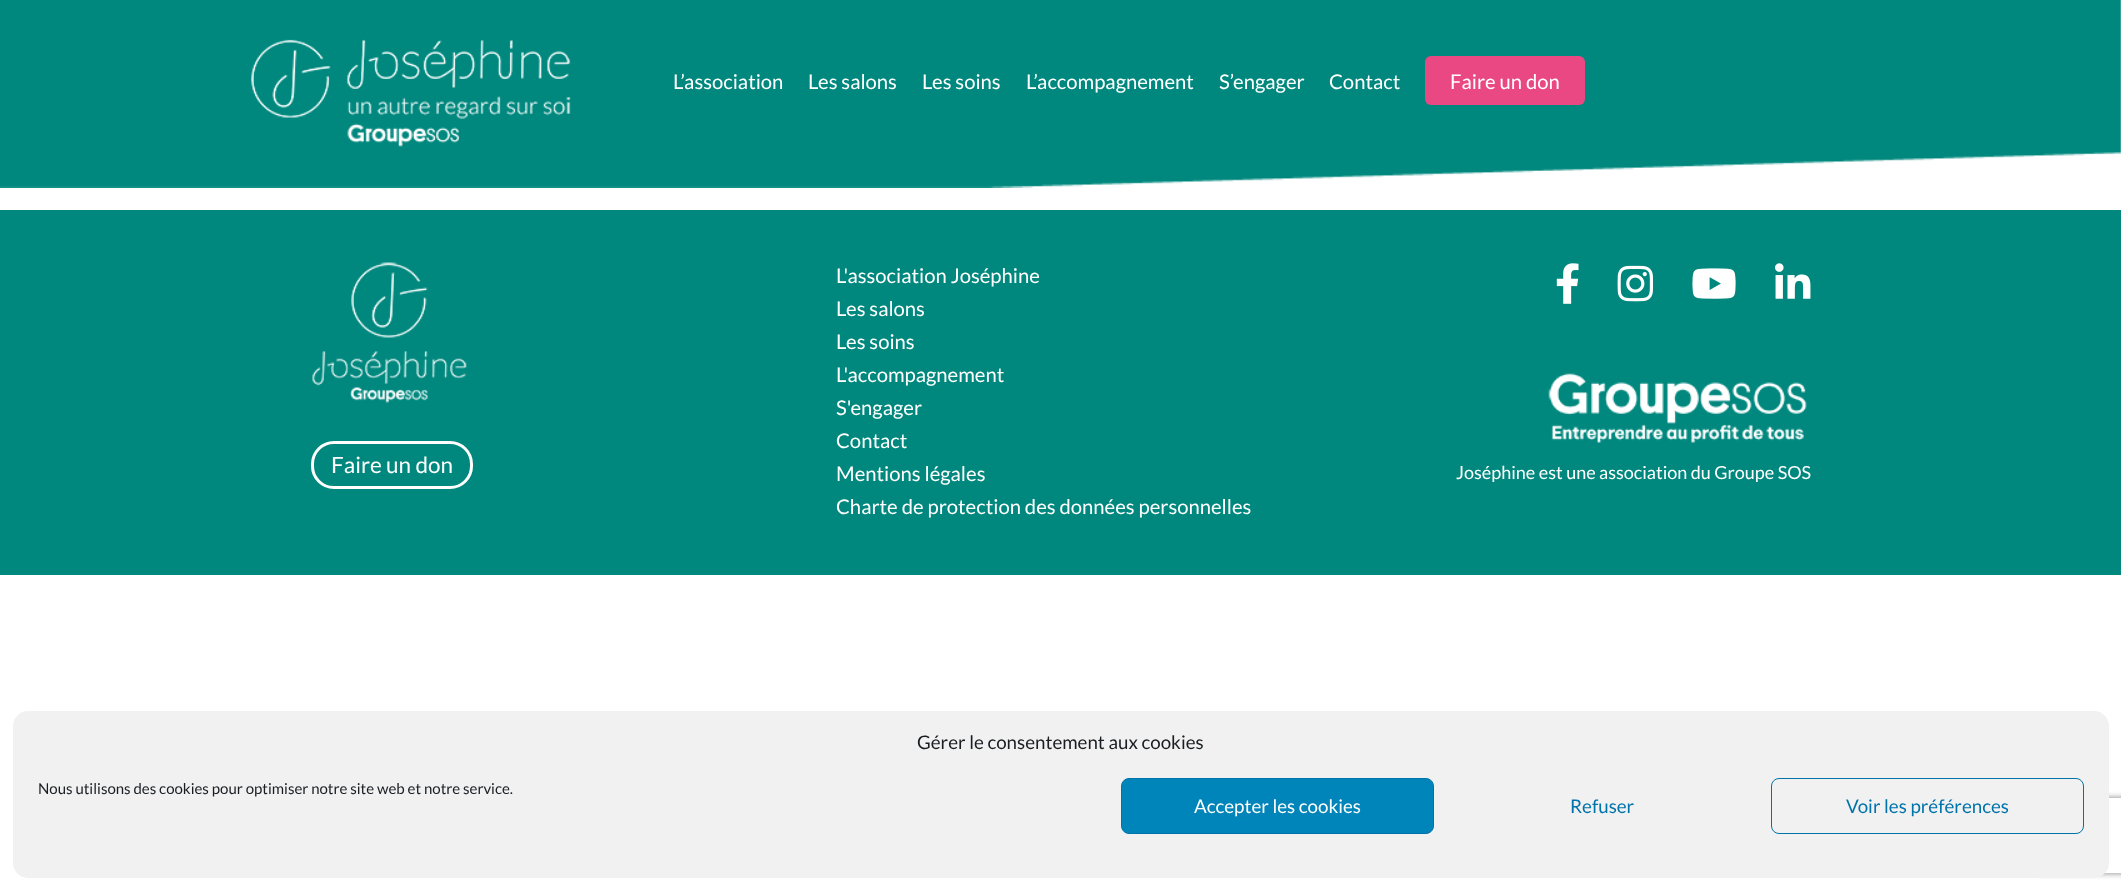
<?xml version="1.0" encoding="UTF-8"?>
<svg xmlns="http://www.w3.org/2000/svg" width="2121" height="890">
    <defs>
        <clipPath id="clip1"><path d="M 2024 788 H 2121 V 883 H 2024 Z M 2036.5 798 H 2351.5 C 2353 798 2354 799 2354 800.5 V 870.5 C 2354 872 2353 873 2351.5 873 H 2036.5 C 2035 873 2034 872 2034 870.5 V 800.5 C 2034 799 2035 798 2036.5 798 Z" clip-rule="evenodd"/></clipPath>
        <filter id="blur1" x="-50%" y="-200%" width="200%" height="500%"><feGaussianBlur stdDeviation="3"/></filter>
    </defs>
    <rect width="100%" height="100%" fill="#FFFFFF"/>
    <image x="0" y="0" width="2121" height="188" href="img_01.png"/>
    <image x="251" y="39" width="320" height="108" href="img_02.png"/>
    <text x="673" y="89" font-family="Lato" font-size="20.25" fill="#FFFFFF">L’association</text>
    <text x="808" y="89" font-family="Lato" font-size="20.25" fill="#FFFFFF">Les salons</text>
    <text x="922" y="89" font-family="Lato" font-size="20.25" fill="#FFFFFF">Les soins</text>
    <text x="1026" y="89" font-family="Lato" font-size="20.25" fill="#FFFFFF">L’accompagnement</text>
    <text x="1219" y="89" font-family="Lato" font-size="20.25" fill="#FFFFFF">S’engager</text>
    <text x="1329" y="89" font-family="Lato" font-size="20.25" fill="#FFFFFF">Contact</text>
    <rect x="1425" y="56" width="160" height="49" rx="6" fill="#E94882"/>
    <text x="1450" y="89" font-family="Lato" font-size="20.25" fill="#FFFFFF">Faire un don</text>
    <rect x="0" y="210" width="2121" height="365" fill="#01887E"/>
    <image x="312" y="262" width="155" height="141" href="img_03.png"/>
    <rect x="312.5" y="442.5" width="159" height="45" rx="21.5" fill="none" stroke="#FFFFFF" stroke-width="3"/>
    <text x="331" y="473" font-family="Lato" font-size="22.5" fill="#FFFFFF">Faire un don</text>
    <text font-family="Lato" font-size="20.25" fill="#FFFFFF">
        <tspan x="836" y="283">L'association Joséphine</tspan>
        <tspan x="836" y="316">Les salons</tspan>
        <tspan x="836" y="349">Les soins</tspan>
        <tspan x="836" y="382">L'accompagnement</tspan>
        <tspan x="836" y="415">S'engager</tspan>
        <tspan x="836" y="448">Contact</tspan>
        <tspan x="836" y="481">Mentions légales</tspan>
        <tspan x="836" y="514">Charte de protection des données personnelles</tspan>
    </text>
    <image x="1556" y="263" width="23" height="41" href="img_04.png"/>
    <image x="1617" y="265" width="36" height="37" href="img_05.png"/>
    <image x="1692" y="268" width="44" height="31" href="img_06.png"/>
    <image x="1775" y="263" width="36" height="36" href="img_07.png"/>
    <image x="1548" y="373" width="259" height="70" href="img_08.png"/>
    <text x="1456" y="479" font-family="Lato" font-size="18" fill="#FFFFFF">Joséphine est une association du Groupe SOS</text>
    <g clip-path="url(#clip1)">
        <rect x="2034" y="798" width="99" height="75" rx="2.5" fill="#808080" filter="url(#blur1)"/>
    </g>
    <rect x="13" y="711" width="2096" height="167" rx="15" fill="#F1F1F1"/>
    <text x="917" y="749" font-family="Lato" font-size="18.75" fill="#191E23">Gérer le consentement aux cookies</text>
    <text x="38" y="794" font-family="Lato" font-size="15" fill="#191E23">Nous utilisons des cookies pour optimiser notre site web et notre service.</text>
    <rect x="1121.5" y="778.5" width="312" height="55" rx="7.5" fill="#0085BA" stroke="#0073AA"/>
    <text x="1194" y="813" font-family="Lato" font-size="18.75" fill="#FFFFFF">Accepter les cookies</text>
    <text x="1570" y="813" font-family="Lato" font-size="18.75" fill="#0073AA">Refuser</text>
    <rect x="1771.5" y="778.5" width="312" height="55" rx="7.5" fill="none" stroke="#0073AA"/>
    <text x="1846" y="813" font-family="Lato" font-size="18.75" fill="#0073AA">Voir les préférences</text>
</svg>
